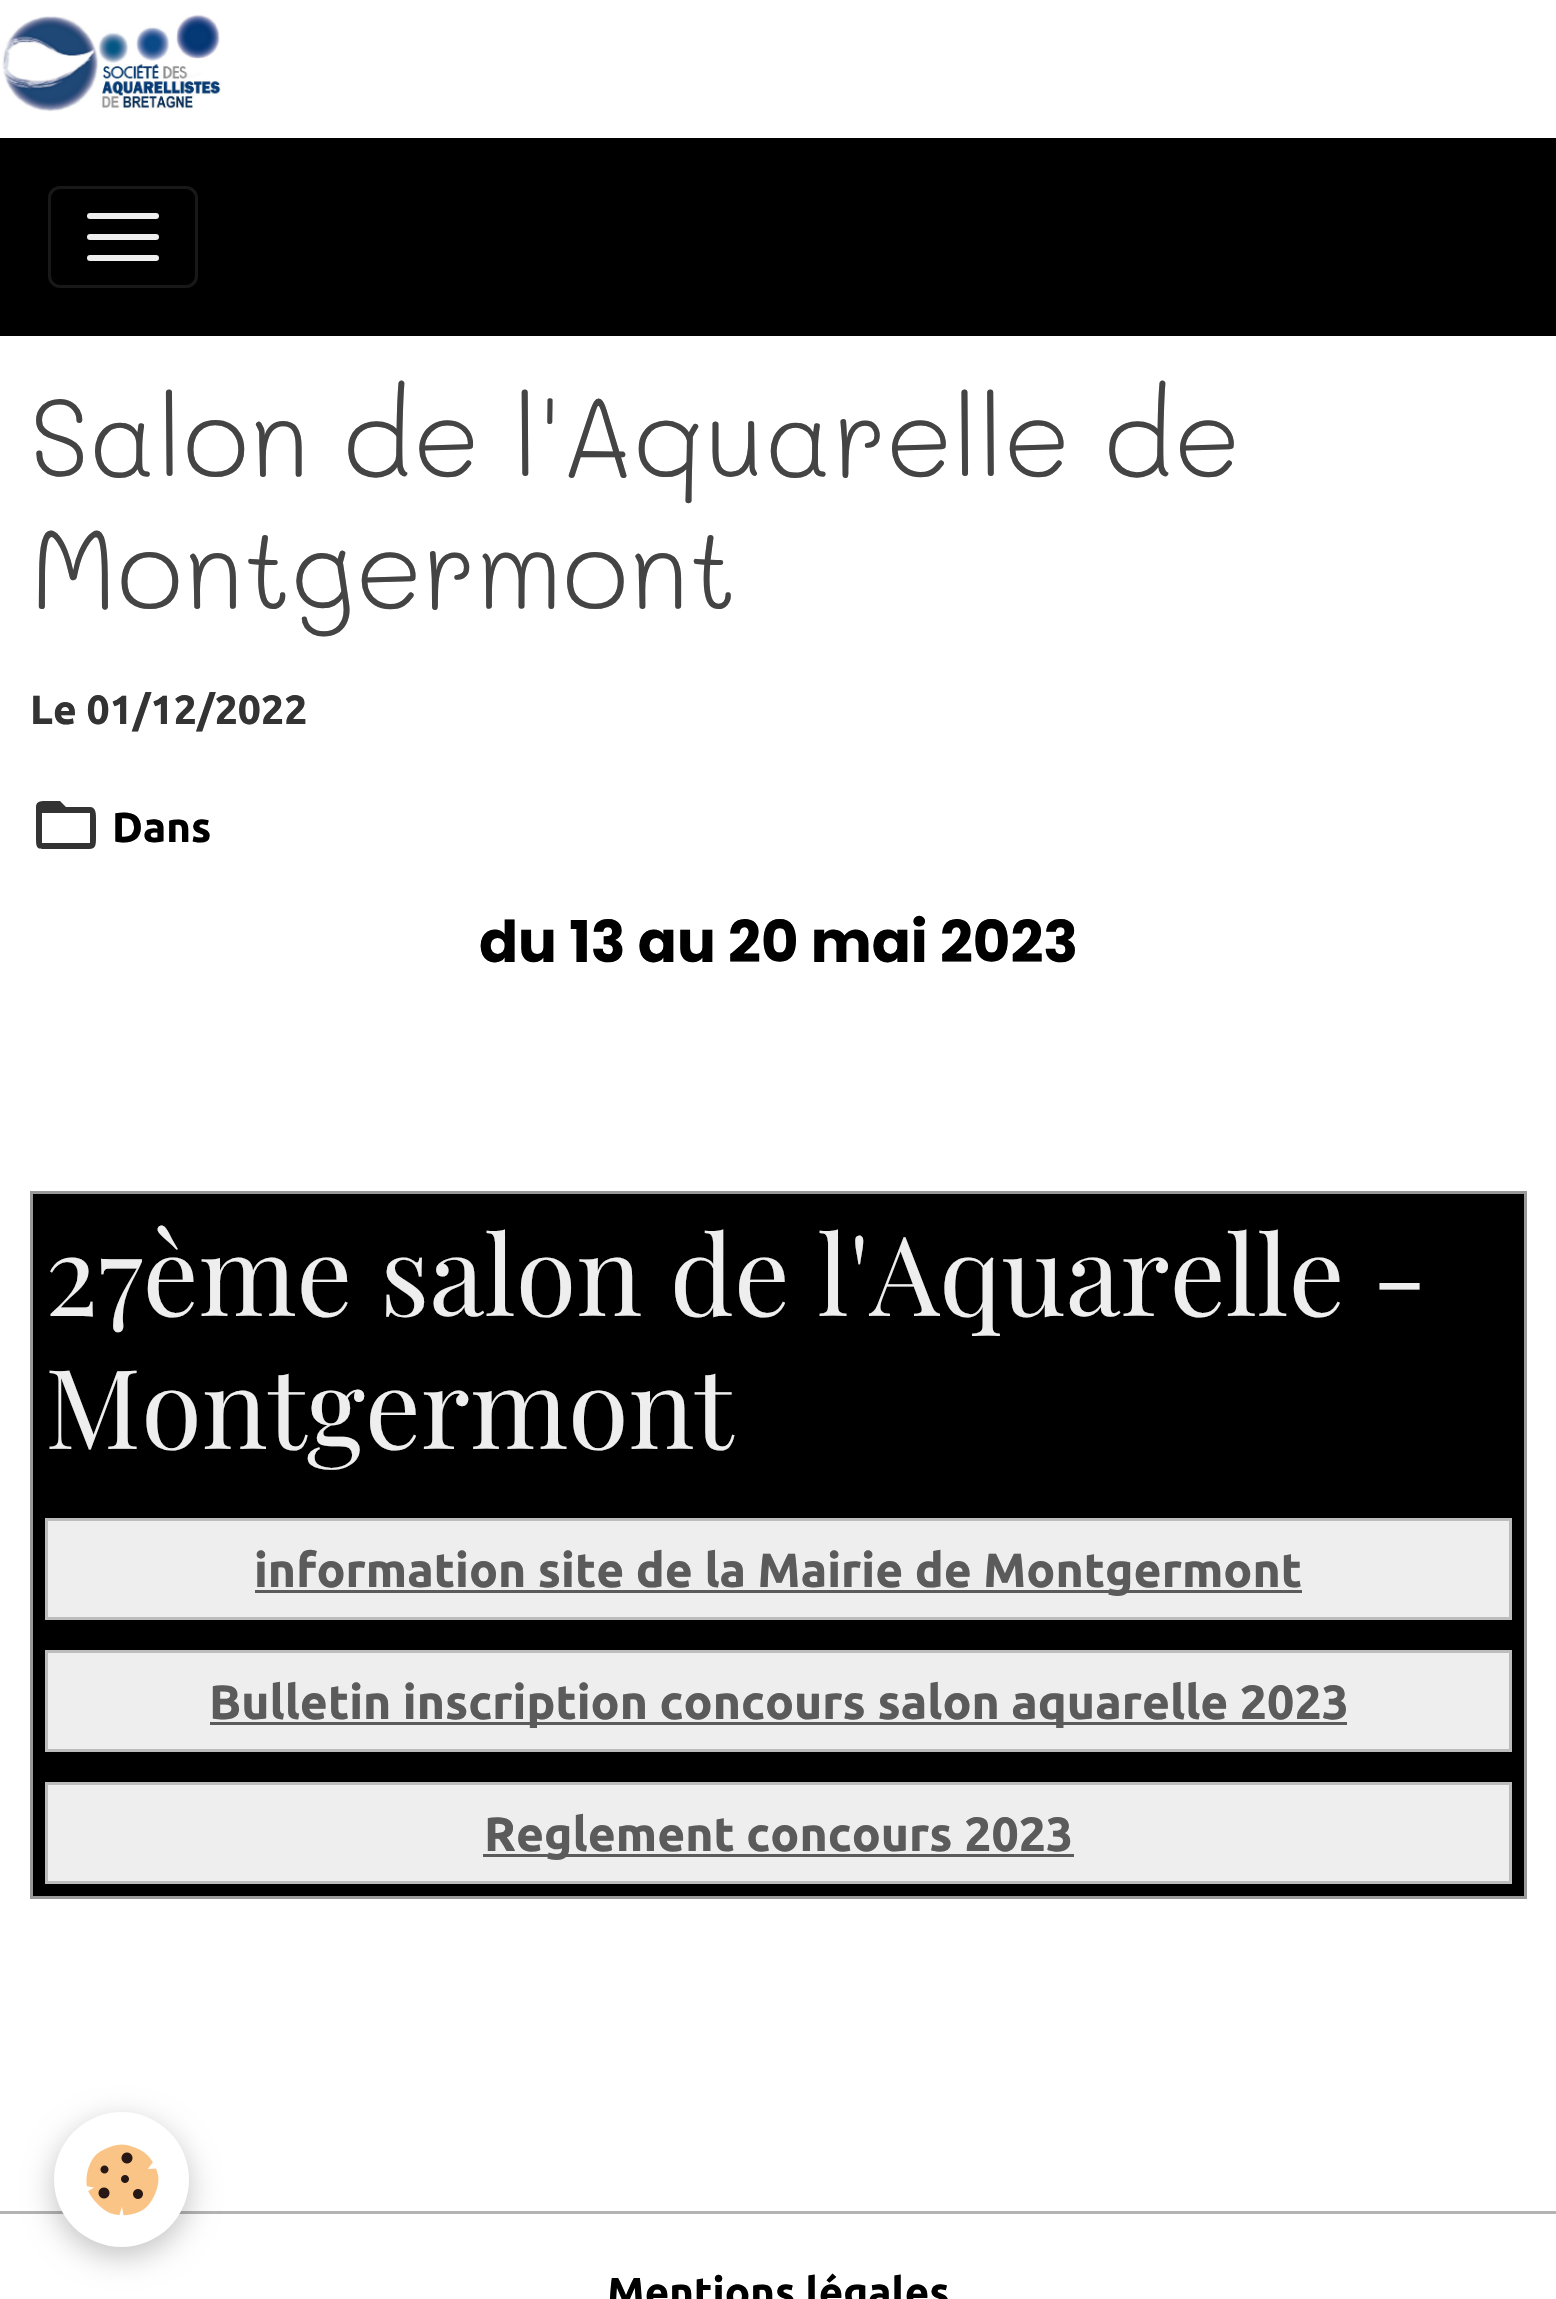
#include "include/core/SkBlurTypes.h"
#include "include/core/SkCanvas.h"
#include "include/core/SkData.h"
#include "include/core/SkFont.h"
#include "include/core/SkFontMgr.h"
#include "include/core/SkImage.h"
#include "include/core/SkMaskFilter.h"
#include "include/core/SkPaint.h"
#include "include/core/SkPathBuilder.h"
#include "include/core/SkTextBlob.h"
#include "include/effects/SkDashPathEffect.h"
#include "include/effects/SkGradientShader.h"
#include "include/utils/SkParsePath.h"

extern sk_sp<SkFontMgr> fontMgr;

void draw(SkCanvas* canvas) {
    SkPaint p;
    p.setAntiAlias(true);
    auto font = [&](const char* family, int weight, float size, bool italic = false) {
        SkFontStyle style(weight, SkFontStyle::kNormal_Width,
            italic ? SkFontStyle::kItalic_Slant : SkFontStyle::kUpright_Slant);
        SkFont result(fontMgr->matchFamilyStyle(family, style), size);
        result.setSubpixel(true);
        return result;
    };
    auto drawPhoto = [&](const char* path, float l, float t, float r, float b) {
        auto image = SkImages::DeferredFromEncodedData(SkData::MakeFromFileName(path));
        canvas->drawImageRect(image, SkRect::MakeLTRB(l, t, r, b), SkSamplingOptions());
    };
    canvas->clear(0xFFFFFFFF);
    drawPhoto("media/1.png", 2, 14, 221, 112);
    p.setColor(0xFF000000);
    canvas->drawRect(SkRect::MakeLTRB(0, 138, 1556, 336), p);
    p.setStyle(SkPaint::kStroke_Style);
    p.setStrokeWidth(3);
    p.setColor(0xFF181818);
    canvas->drawRoundRect(SkRect::MakeLTRB(49.5f, 187.5f, 196.5f, 286.5f), 10.5f, 10.5f, p);
    p.setStyle(SkPaint::kFill_Style);
    p.setColor(0xFFEEEEEE);
    canvas->drawRoundRect(SkRect::MakeLTRB(87, 213, 159, 219), 3, 3, p);
    canvas->drawRoundRect(SkRect::MakeLTRB(87, 234, 159, 240), 3, 3, p);
    canvas->drawRoundRect(SkRect::MakeLTRB(87, 255, 159, 261), 3, 3, p);
    auto font1 = font("Mali", 300, 110.4f);
    p.setColor(0xFF444444);
    canvas->drawString("Salon de l'Aquarelle de", 30, 477, font1, p);
    canvas->drawString("Montgermont", 30, 609, font1, p);
    auto font2 = font("Ubuntu", 700, 40.75f);
    p.setColor(0xFF333333);
    canvas->drawString("Le 01/12/2022", 30, 724, font2, p);
    canvas->drawPath(SkPathBuilder().moveTo(90, 807).cubicTo(96, 807, 96, 814, 96, 818).lineTo(96, 838).cubicTo(96, 850, 94, 849, 82, 849).lineTo(50, 849).cubicTo(37, 849, 36, 850, 36, 837).lineTo(36, 807).cubicTo(36, 800, 43, 801, 48, 801).lineTo(60, 801).lineTo(66, 807).close().moveTo(90, 843).lineTo(90, 813).lineTo(42, 813).lineTo(42, 843).close().detach(), p);
    auto font3 = font("Ubuntu", 700, 42);
    p.setColor(0xFF000000);
    canvas->drawString("Dans", 112, 842, font3, p);
    auto font4 = font("Poppins", 700, 57.6f);
    canvas->drawString("du 13 au 20 mai 2023", 479, 962, font4, p);
    canvas->drawRect(SkRect::MakeLTRB(31.5f, 1192.5f, 1525.5f, 1897.5f), p);
    p.setStyle(SkPaint::kStroke_Style);
    p.setColor(0xFF999999);
    canvas->drawRect(SkRect::MakeLTRB(31.5f, 1192.5f, 1525.5f, 1897.5f), p);
    auto font5 = font("Playfair Display", 400, 110.4f);
    p.setStyle(SkPaint::kFill_Style);
    p.setColor(0xFFEEEEEE);
    canvas->drawString("27ème salon de l'Aquarelle -", 45, 1316, font5, p);
    canvas->drawString("Montgermont", 45, 1449, font5, p);
    canvas->drawRect(SkRect::MakeLTRB(46.5f, 1519.5f, 1510.5f, 1618.5f), p);
    p.setStyle(SkPaint::kStroke_Style);
    p.setColor(0xFFBCBCBC);
    canvas->drawRect(SkRect::MakeLTRB(46.5f, 1519.5f, 1510.5f, 1618.5f), p);
    p.setStyle(SkPaint::kFill_Style);
    p.setColor(0xFF5B5B5B);
    canvas->drawRect(SkRect::MakeLTRB(255, 1590, 1302, 1593), p);
    auto font6 = font("Ubuntu", 700, 48);
    canvas->drawString("information site de la Mairie de Montgermont", 254, 1587, font6, p);
    p.setColor(0xFFEEEEEE);
    canvas->drawRect(SkRect::MakeLTRB(46.5f, 1651.5f, 1510.5f, 1750.5f), p);
    p.setStyle(SkPaint::kStroke_Style);
    p.setColor(0xFFBCBCBC);
    canvas->drawRect(SkRect::MakeLTRB(46.5f, 1651.5f, 1510.5f, 1750.5f), p);
    p.setStyle(SkPaint::kFill_Style);
    p.setColor(0xFF5B5B5B);
    canvas->drawRect(SkRect::MakeLTRB(210, 1722, 1347, 1725), p);
    canvas->drawString("Bulletin inscription concours salon aquarelle 2023", 209, 1719, font6, p);
    p.setColor(0xFFEEEEEE);
    canvas->drawRect(SkRect::MakeLTRB(46.5f, 1783.5f, 1510.5f, 1882.5f), p);
    p.setStyle(SkPaint::kStroke_Style);
    p.setColor(0xFFBCBCBC);
    canvas->drawRect(SkRect::MakeLTRB(46.5f, 1783.5f, 1510.5f, 1882.5f), p);
    p.setStyle(SkPaint::kFill_Style);
    p.setColor(0xFF5B5B5B);
    canvas->drawRect(SkRect::MakeLTRB(483, 1854, 1074, 1857), p);
    canvas->drawString("Reglement concours 2023", 484, 1851, font6, p);
    p.setColor(0xFFB3B3B3);
    canvas->drawRect(SkRect::MakeLTRB(0, 2211, 1556, 2214), p);
    p.setColor(0x3D000000);
    p.setMaskFilter(SkMaskFilter::MakeBlur(kNormal_SkBlurStyle, 15));
    canvas->drawRoundRect(SkRect::MakeLTRB(54, 2121, 189, 2256), 67.5f, 67.5f, p);
    p.setMaskFilter(nullptr);
    p.setColor(0xFFFFFFFF);
    canvas->drawCircle(121.5f, 2179.5f, 67.5f, p);
    drawPhoto("media/2.png", 86, 2144, 159, 2216);
    p.setColor(0xFF000000);
    canvas->drawString("Mentions légales", 607, 2307, font3, p);
}
